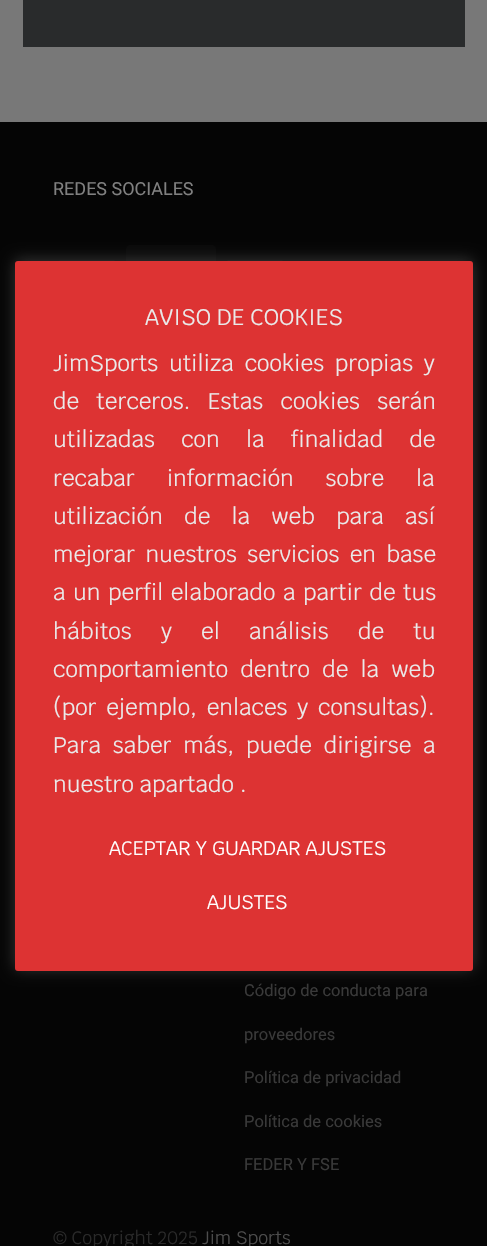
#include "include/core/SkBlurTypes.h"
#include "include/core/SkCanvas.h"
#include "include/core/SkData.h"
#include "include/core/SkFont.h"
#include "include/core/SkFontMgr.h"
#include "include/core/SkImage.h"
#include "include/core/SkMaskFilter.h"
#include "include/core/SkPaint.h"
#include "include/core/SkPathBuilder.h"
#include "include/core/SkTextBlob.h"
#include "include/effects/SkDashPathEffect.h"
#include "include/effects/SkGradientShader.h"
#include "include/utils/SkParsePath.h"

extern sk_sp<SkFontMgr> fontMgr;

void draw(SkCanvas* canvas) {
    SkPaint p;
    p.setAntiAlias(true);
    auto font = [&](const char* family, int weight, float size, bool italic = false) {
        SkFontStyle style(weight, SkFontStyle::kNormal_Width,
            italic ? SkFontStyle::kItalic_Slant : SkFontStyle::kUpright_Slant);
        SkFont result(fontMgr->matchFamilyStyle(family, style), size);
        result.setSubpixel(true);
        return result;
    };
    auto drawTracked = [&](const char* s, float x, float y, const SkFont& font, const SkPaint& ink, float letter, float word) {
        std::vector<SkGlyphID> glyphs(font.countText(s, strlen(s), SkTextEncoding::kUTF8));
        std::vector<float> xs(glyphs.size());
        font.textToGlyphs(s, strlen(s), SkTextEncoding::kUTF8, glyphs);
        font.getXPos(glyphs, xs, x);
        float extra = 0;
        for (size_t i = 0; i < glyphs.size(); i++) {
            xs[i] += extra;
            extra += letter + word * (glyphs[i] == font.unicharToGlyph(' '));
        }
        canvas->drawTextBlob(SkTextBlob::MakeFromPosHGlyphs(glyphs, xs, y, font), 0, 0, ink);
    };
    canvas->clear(0xFF787878);
    p.setColor(0xFF292B2C);
    canvas->drawRect(SkRect::MakeLTRB(23, 0, 465, 47), p);
    p.setColor(0xFF050505);
    canvas->drawRect(SkRect::MakeLTRB(0, 122, 487, 1246), p);
    auto font1 = font("Roboto", 400, 18);
    p.setColor(0xFF808080);
    canvas->drawString("REDES SOCIALES", 53, 195, font1, p);
    p.setColor(0xFF090909);
    canvas->drawRoundRect(SkRect::MakeLTRB(57, 260, 117, 320), 5, 5, p);
    canvas->drawRoundRect(SkRect::MakeLTRB(126, 245, 216, 335), 5, 5, p);
    canvas->drawRoundRect(SkRect::MakeLTRB(225, 260, 285, 320), 5, 5, p);
    auto font2 = font("Roboto", 400, 16.5f);
    p.setColor(0xFF393939);
    {
        const struct { const char* s; float x, y; } items[] = {
            {"Código de conducta para", 244, 996},
            {"proveedores", 244, 1040},
            {"Política de privacidad", 244, 1083},
            {"Política de cookies", 244, 1127},
            {"FEDER Y FSE", 244, 1170},
        };
        for (auto [s, x, y] : items) {
            canvas->drawString(s, x, y, font2, p);
        }
    }
    auto font3 = font("Krub", 400, 18);
    p.setColor(0xFF2A2A2A);
    canvas->drawString("© Copyright 2025", 53, 1244, font3, p);
    p.setColor(0xFF4D4D4D);
    canvas->drawString("Jim Sports", 202, 1244, font3, p);
    p.setColor(0x4DACABAB);
    p.setMaskFilter(SkMaskFilter::MakeBlur(kNormal_SkBlurStyle, 7.5f));
    canvas->drawRoundRect(SkRect::MakeLTRB(15, 260, 473, 969), 3, 3, p);
    p.setMaskFilter(nullptr);
    p.setColor(0xFFDD3333);
    canvas->drawRoundRect(SkRect::MakeLTRB(15, 261, 473, 971), 3, 3, p);
    auto font4 = font("Krub", 400, 22.5f);
    p.setColor(0xFFEAEAEA);
    canvas->drawString("AVISO DE COOKIES", 145, 325, font4, p);
    drawTracked("JimSports utiliza cookies propias y", 53, 371, font4, p, 0, 5);
    drawTracked("de terceros. Estas cookies serán", 53, 409, font4, p, 0, 11.5f);
    drawTracked("utilizadas con la finalidad de", 53, 447, font4, p, 0, 20.5f);
    drawTracked("recabar información sobre la", 53, 486, font4, p, 0, 26);
    drawTracked("utilización de la web para así", 53, 524, font4, p, 0, 15.5f);
    drawTracked("mejorar nuestros servicios en base", 53, 562, font4, p, 0, 4.5f);
    drawTracked("a un perfil elaborado a partir de tus", 53, 600, font4, p, 0, 1.75f);
    drawTracked("hábitos y el análisis de tu", 53, 639, font4, p, 0, 23.5f);
    drawTracked("comportamiento dentro de la web", 53, 677, font4, p, 0, 6.5f);
    drawTracked("(por ejemplo, enlaces y consultas).", 53, 715, font4, p, 0, 4);
    drawTracked("Para saber más, puede dirigirse a", 53, 753, font4, p, 0, 6);
    canvas->drawString("nuestro apartado .", 53, 792, font4, p);
    auto font5 = font("Krub", 400, 19.5f);
    p.setColor(0xFFFFFFFF);
    canvas->drawString("ACEPTAR Y GUARDAR AJUSTES", 109, 855, font5, p);
    canvas->drawString("AJUSTES", 207, 909, font5, p);
}
